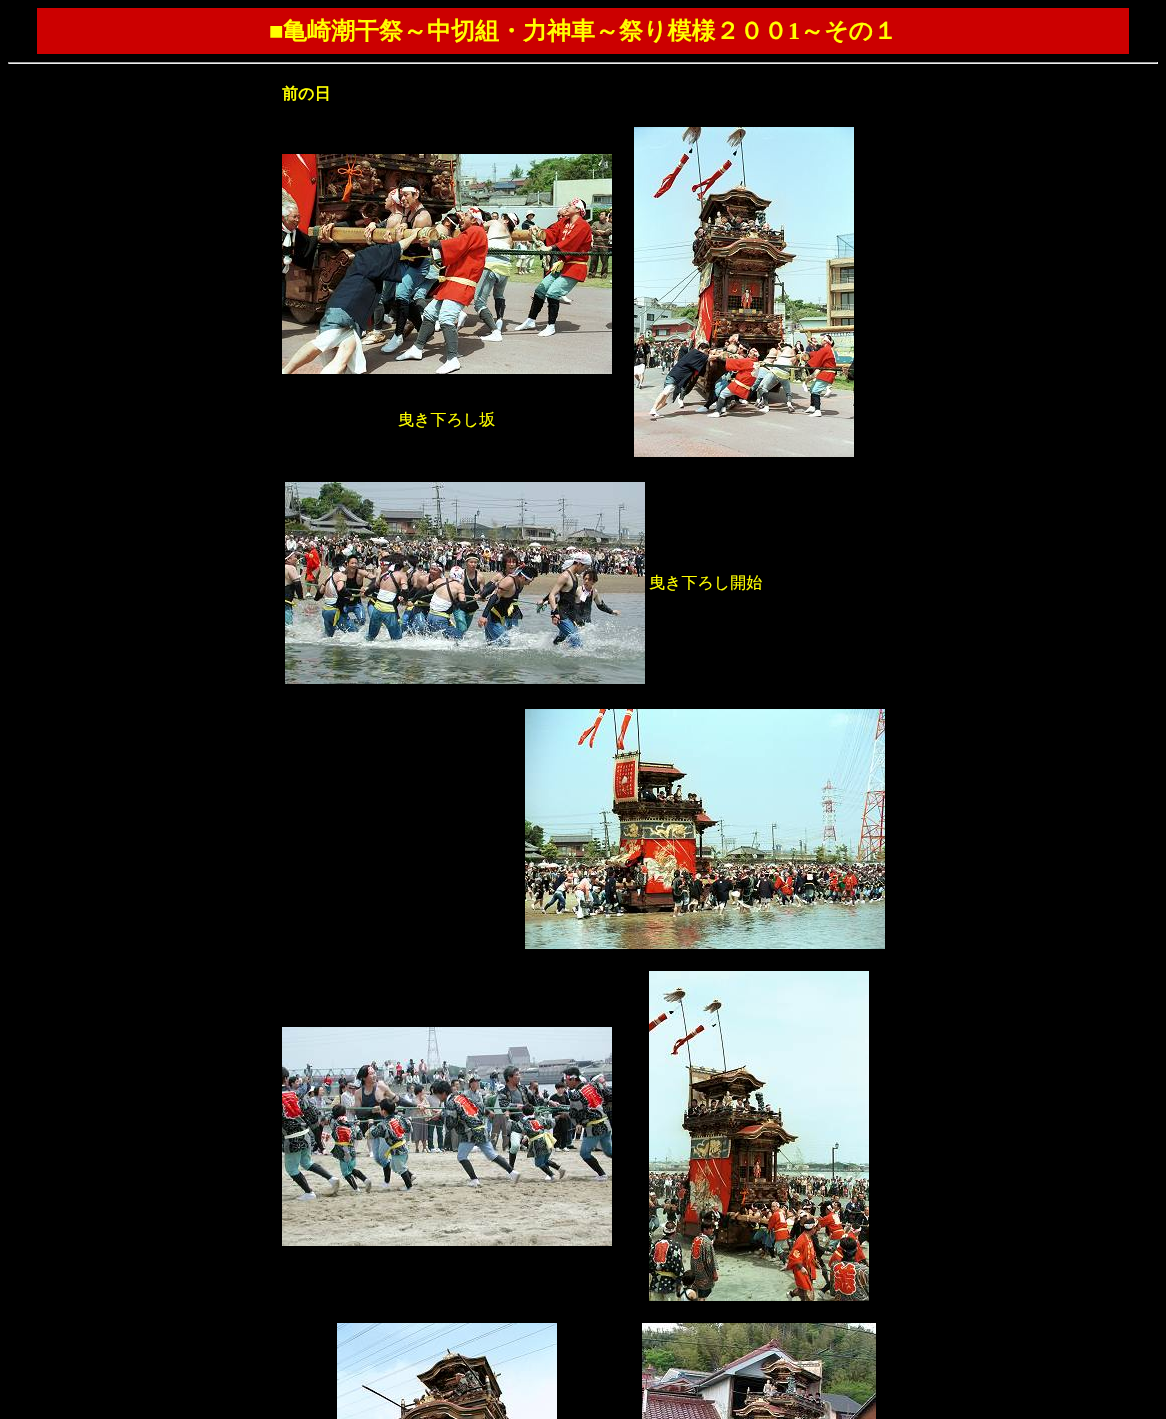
#include "include/core/SkBlurTypes.h"
#include "include/core/SkCanvas.h"
#include "include/core/SkData.h"
#include "include/core/SkFont.h"
#include "include/core/SkFontMgr.h"
#include "include/core/SkImage.h"
#include "include/core/SkMaskFilter.h"
#include "include/core/SkPaint.h"
#include "include/core/SkPathBuilder.h"
#include "include/core/SkTextBlob.h"
#include "include/effects/SkDashPathEffect.h"
#include "include/effects/SkGradientShader.h"
#include "include/utils/SkParsePath.h"

extern sk_sp<SkFontMgr> fontMgr;

void draw(SkCanvas* canvas) {
    SkPaint p;
    p.setAntiAlias(true);
    auto font = [&](const char* family, int weight, float size, bool italic = false) {
        SkFontStyle style(weight, SkFontStyle::kNormal_Width,
            italic ? SkFontStyle::kItalic_Slant : SkFontStyle::kUpright_Slant);
        SkFont result(fontMgr->matchFamilyStyle(family, style), size);
        result.setSubpixel(true);
        return result;
    };
    auto drawPhoto = [&](const char* path, float l, float t, float r, float b) {
        auto image = SkImages::DeferredFromEncodedData(SkData::MakeFromFileName(path));
        canvas->drawImageRect(image, SkRect::MakeLTRB(l, t, r, b), SkSamplingOptions());
    };
    canvas->clear(0xFF000000);
    p.setColor(0xFFCC0000);
    canvas->drawRect(SkRect::MakeLTRB(37, 8, 1129, 54), p);
    auto font1 = font("Liberation Serif", 700, 24);
    p.setColor(0xFFFFFF00);
    canvas->drawString("■", 269, 39, font1, p);
    auto font2 = font("WenQuanYi Zen Hei", 700, 24);
    canvas->drawString("亀崎潮干祭～中切組・力神車～祭り模様２００", 283, 39, font2, p);
    canvas->drawString("1", 788, 39, font1, p);
    canvas->drawString("～その１", 800, 39, font2, p);
    {
        const struct { float l, t, r, b; SkColor color; } items[] = {
            {8, 62, 1158, 63, 0xFF9F9F9F},
            {1157, 62, 1158, 64, 0xFFEEEEEE},
            {8, 63, 1158, 64, 0xFFEEEEEE},
            {8, 62, 9, 64, 0xFF9F9F9F},
        };
        for (auto [l, t, r, b, color] : items) {
            p.setColor(color);
            canvas->drawRect(SkRect::MakeLTRB(l, t, r, b), p);
        }
    }
    auto font3 = font("WenQuanYi Zen Hei", 700, 16);
    p.setColor(0xFFFFFF00);
    canvas->drawString("前の日", 282, 99, font3, p);
    drawPhoto("media/1.png", 282, 154, 612, 374);
    auto font4 = font("WenQuanYi Zen Hei", 500, 16);
    canvas->drawString("曳き下ろし坂", 398, 425, font4, p);
    drawPhoto("media/2.png", 634, 127, 854, 457);
    drawPhoto("media/3.png", 285, 482, 645, 684);
    canvas->drawString("曳き下ろし開始", 649, 588, font4, p);
    drawPhoto("media/4.png", 525, 709, 885, 949);
    drawPhoto("media/5.png", 282, 1027, 612, 1246);
    drawPhoto("media/6.png", 649, 971, 869, 1301);
    drawPhoto("media/7.png", 337, 1323, 557, 1419);
    drawPhoto("media/8.png", 642, 1323, 876, 1419);
}
